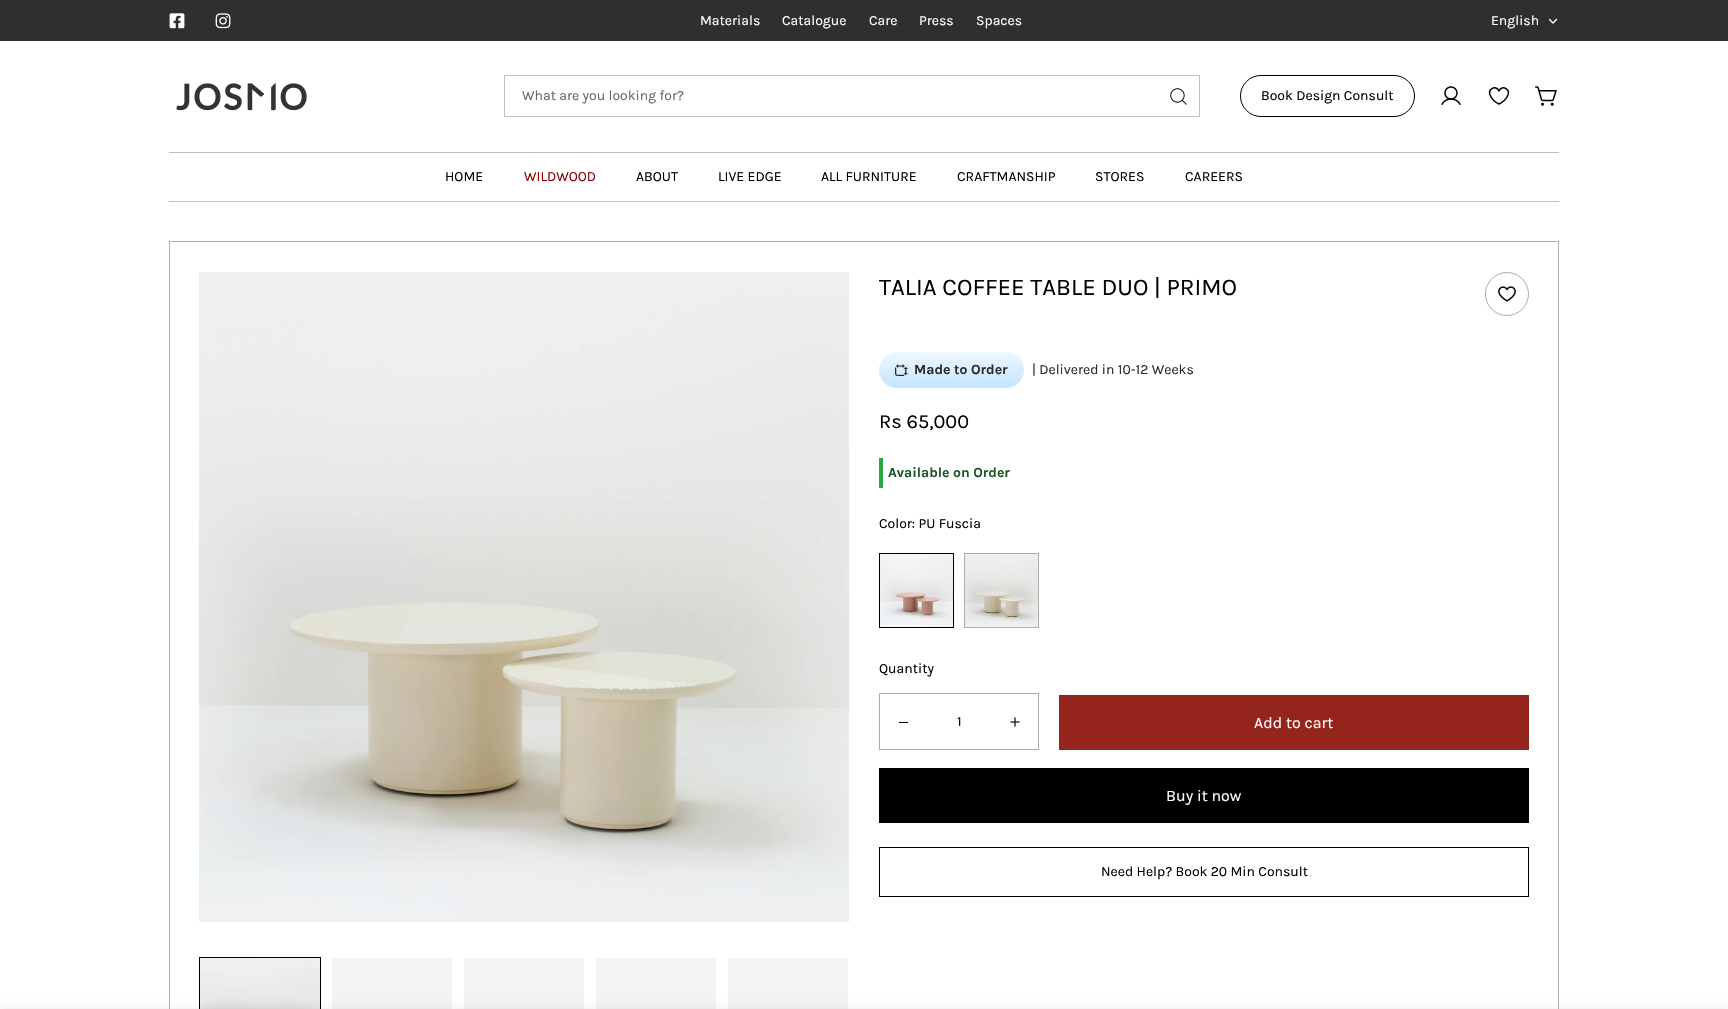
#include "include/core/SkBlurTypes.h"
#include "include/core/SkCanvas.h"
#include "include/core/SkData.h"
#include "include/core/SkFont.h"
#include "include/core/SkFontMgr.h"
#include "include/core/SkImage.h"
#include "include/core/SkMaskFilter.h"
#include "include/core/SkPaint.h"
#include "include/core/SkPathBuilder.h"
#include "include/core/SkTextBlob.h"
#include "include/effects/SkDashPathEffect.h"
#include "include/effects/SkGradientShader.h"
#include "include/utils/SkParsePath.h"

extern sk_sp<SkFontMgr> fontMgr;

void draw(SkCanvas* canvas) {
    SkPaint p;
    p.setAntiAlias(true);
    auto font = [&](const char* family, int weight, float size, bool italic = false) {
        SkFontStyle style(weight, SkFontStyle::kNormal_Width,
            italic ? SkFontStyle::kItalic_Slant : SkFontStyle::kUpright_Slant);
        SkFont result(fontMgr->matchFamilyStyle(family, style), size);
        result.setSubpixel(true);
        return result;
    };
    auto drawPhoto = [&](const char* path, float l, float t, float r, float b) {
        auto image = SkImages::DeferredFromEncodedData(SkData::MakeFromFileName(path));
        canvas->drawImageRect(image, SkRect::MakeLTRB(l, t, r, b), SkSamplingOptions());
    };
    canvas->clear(0xFFFFFFFF);
    p.setColor(0xFF2F2F2F);
    canvas->drawRect(SkRect::MakeLTRB(0, 0, 1728, 41), p);
    drawPhoto("media/1.png", 169, 13, 185, 29);
    drawPhoto("media/2.png", 215, 13, 231, 29);
    auto font1 = font("Karla", 400, 14);
    p.setColor(0xFFFFFFFF);
    {
        const struct { const char* s; float x, y; } items[] = {
            {"Materials", 700, 25},
            {"Catalogue", 782, 25},
            {"Care", 869, 25},
            {"Press", 919, 25},
            {"Spaces", 976, 25},
            {"English", 1491, 25},
        };
        for (auto [s, x, y] : items) {
            canvas->drawString(s, x, y, font1, p);
        }
    }
    p.setStyle(SkPaint::kStroke_Style);
    p.setStrokeWidth(1.4f);
    p.setStrokeCap(SkPaint::kRound_Cap);
    p.setStrokeJoin(SkPaint::kRound_Join);
    canvas->drawPath(SkPathBuilder().moveTo(1556.5f, 19.5f).lineTo(1553, 23).lineTo(1549.5f, 19.5f).detach(), p);
    drawPhoto("media/3.png", 176, 83, 307, 111);
    p.setStrokeWidth(1);
    p.setStrokeCap(SkPaint::kButt_Cap);
    p.setStrokeJoin(SkPaint::kMiter_Join);
    p.setColor(0xFFC0C0C0);
    canvas->drawRect(SkRect::MakeLTRB(504.5f, 75.5f, 1199.5f, 116.5f), p);
    p.setStyle(SkPaint::kFill_Style);
    p.setColor(0xFF666666);
    canvas->drawString("What are you looking for?", 522, 100, font1, p);
    drawPhoto("media/4.png", 1170, 88, 1187, 105);
    p.setStyle(SkPaint::kStroke_Style);
    p.setColor(0xFF000000);
    canvas->drawRoundRect(SkRect::MakeLTRB(1240.5f, 75.5f, 1414.5f, 116.5f), 20.5f, 20.5f, p);
    p.setStyle(SkPaint::kFill_Style);
    canvas->drawString("Book Design Consult", 1261, 100, font1, p);
    drawPhoto("media/5.png", 1441, 86, 1461, 105);
    p.setStyle(SkPaint::kStroke_Style);
    p.setStrokeWidth(1.5f);
    p.setStrokeCap(SkPaint::kRound_Cap);
    p.setStrokeJoin(SkPaint::kRound_Join);
    canvas->drawPath(SkPathBuilder().moveTo(1499, 104).cubicTo(1496, 102.5f, 1492.5f, 100, 1491, 97).cubicTo(1485.5f, 89, 1496.5f, 84.5f, 1499, 91).cubicTo(1501.5f, 84.5f, 1512.5f, 89, 1507, 97).cubicTo(1505.5f, 100, 1502, 102.5f, 1499, 104).close().detach(), p);
    drawPhoto("media/6.png", 1535, 86, 1557, 106);
    p.setStyle(SkPaint::kFill_Style);
    p.setColor(0xFFC0C0C0);
    canvas->drawRect(SkRect::MakeLTRB(169, 152, 1559, 153), p);
    canvas->drawRect(SkRect::MakeLTRB(169, 201, 1559, 202), p);
    p.setColor(0xFF000000);
    canvas->drawString("HOME", 445, 181, font1, p);
    p.setColor(0xFF8B0000);
    canvas->drawString("WILDWOOD", 524, 181, font1, p);
    p.setColor(0xFF000000);
    {
        const struct { const char* s; float x, y; } items[] = {
            {"ABOUT", 636, 181},
            {"LIVE EDGE", 718, 181},
            {"ALL FURNITURE", 821, 181},
            {"CRAFTMANSHIP", 957, 181},
            {"STORES", 1095, 181},
            {"CAREERS", 1185, 181},
        };
        for (auto [s, x, y] : items) {
            canvas->drawString(s, x, y, font1, p);
        }
    }
    drawPhoto("media/7.png", 199, 272, 849, 922);
    p.setStyle(SkPaint::kStroke_Style);
    p.setStrokeWidth(1);
    p.setStrokeCap(SkPaint::kButt_Cap);
    p.setStrokeJoin(SkPaint::kMiter_Join);
    canvas->drawRect(SkRect::MakeLTRB(199.5f, 957.5f, 320.5f, 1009.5f), p);
    drawPhoto("media/8.png", 200, 958, 320, 1009);
    p.setStyle(SkPaint::kFill_Style);
    {
        const struct { float l, t, r, b; SkColor color; } items[] = {
            {332, 958, 452, 1009, 0xFFF3F3F3},
            {464, 958, 584, 1009, 0xFFF3F3F3},
            {596, 958, 716, 1009, 0xFFF3F3F3},
            {728, 958, 848, 1009, 0xFFF3F3F3},
        };
        for (auto [l, t, r, b, color] : items) {
            p.setColor(color);
            canvas->drawRect(SkRect::MakeLTRB(l, t, r, b), p);
        }
    }
    p.setStyle(SkPaint::kStroke_Style);
    p.setColor(0xFFADADAD);
    canvas->drawRect(SkRect::MakeLTRB(169.5f, 241.5f, 1558.5f, 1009.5f), p);
    auto font2 = font("Karla", 400, 24);
    p.setStyle(SkPaint::kFill_Style);
    p.setColor(0xFF000000);
    canvas->drawString("TALIA COFFEE TABLE DUO | PRIMO", 879, 295, font2, p);
    p.setStyle(SkPaint::kStroke_Style);
    p.setColor(0xFFADADAD);
    canvas->drawCircle(1507, 294, 21.5f, p);
    drawPhoto("media/9.png", 1498, 286, 1516, 302);
    p.setStyle(SkPaint::kFill_Style);
    {
        const SkColor colors[] = {0xFFEEF8FF, 0xFFC2E5FF};
        const float stops[] = {0, 1};
        const SkPoint ends[] = {{952, 352}, {952, 388}};
        p.setShader(SkGradientShader::MakeLinear(ends, colors, stops, 2, SkTileMode::kClamp));
        p.setAlpha(255);
    }
    canvas->drawRoundRect(SkRect::MakeLTRB(879, 352, 1024, 388), 18, 18, p);
    drawPhoto("media/10.png", 895, 364, 908, 376);
    auto font3 = font("Karla", 700, 14);
    p.setShader(nullptr);
    p.setColor(0xFF292929);
    canvas->drawString("Made to Order", 914, 374, font3, p);
    canvas->drawString("| Delivered in 10-12 Weeks", 1032, 374, font1, p);
    auto font4 = font("Karla", 400, 20);
    p.setColor(0xFF000000);
    canvas->drawString("Rs 65,000", 879, 428, font4, p);
    p.setColor(0xFF28A745);
    canvas->drawRect(SkRect::MakeLTRB(879, 458, 883, 488), p);
    p.setColor(0xFF155724);
    canvas->drawString("Available on Order", 888, 477, font3, p);
    p.setColor(0xFF000000);
    canvas->drawString("Color: PU Fuscia", 879, 528, font1, p);
    drawPhoto("media/11.png", 880, 554, 953, 627);
    p.setStyle(SkPaint::kStroke_Style);
    canvas->drawRect(SkRect::MakeLTRB(879.5f, 553.5f, 953.5f, 627.5f), p);
    drawPhoto("media/12.png", 965, 554, 1038, 627);
    p.setColor(0xFFADADAD);
    canvas->drawRect(SkRect::MakeLTRB(964.5f, 553.5f, 1038.5f, 627.5f), p);
    p.setStyle(SkPaint::kFill_Style);
    p.setColor(0xFF000000);
    canvas->drawString("Quantity", 879, 673, font1, p);
    p.setStyle(SkPaint::kStroke_Style);
    p.setColor(0xFFADADAD);
    canvas->drawRect(SkRect::MakeLTRB(879.5f, 693.5f, 1038.5f, 749.5f), p);
    drawPhoto("media/13.png", 898, 721, 908, 723);
    p.setStyle(SkPaint::kFill_Style);
    p.setColor(0xFF000000);
    canvas->drawString("1", 957, 726, font1, p);
    drawPhoto("media/14.png", 1010, 717, 1020, 727);
    p.setColor(0xFF95251C);
    canvas->drawRect(SkRect::MakeLTRB(1059, 695, 1529, 750), p);
    auto font5 = font("Karla", 400, 16);
    p.setColor(0xFFFFFFFF);
    canvas->drawString("Add to cart", 1254, 728, font5, p);
    p.setColor(0xFF000000);
    canvas->drawRect(SkRect::MakeLTRB(879, 768, 1529, 823), p);
    p.setColor(0xFFFFFFFF);
    canvas->drawString("Buy it now", 1166, 801, font5, p);
    p.setStyle(SkPaint::kStroke_Style);
    p.setColor(0xFF000000);
    canvas->drawRect(SkRect::MakeLTRB(879.5f, 847.5f, 1528.5f, 896.5f), p);
    p.setStyle(SkPaint::kFill_Style);
    canvas->drawString("Need Help? Book 20 Min Consult", 1101, 876, font1, p);
    p.setColor(0x17000000);
    p.setMaskFilter(SkMaskFilter::MakeBlur(kNormal_SkBlurStyle, 5));
    canvas->drawRect(SkRect::MakeLTRB(0, 1009, 1728, 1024), p);
    p.setMaskFilter(nullptr);
}
